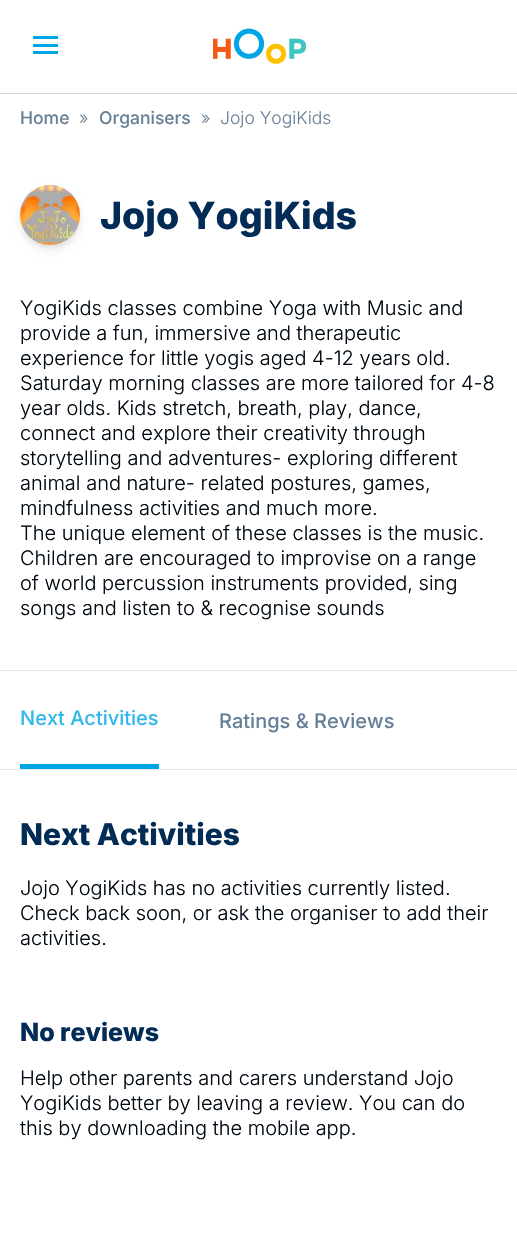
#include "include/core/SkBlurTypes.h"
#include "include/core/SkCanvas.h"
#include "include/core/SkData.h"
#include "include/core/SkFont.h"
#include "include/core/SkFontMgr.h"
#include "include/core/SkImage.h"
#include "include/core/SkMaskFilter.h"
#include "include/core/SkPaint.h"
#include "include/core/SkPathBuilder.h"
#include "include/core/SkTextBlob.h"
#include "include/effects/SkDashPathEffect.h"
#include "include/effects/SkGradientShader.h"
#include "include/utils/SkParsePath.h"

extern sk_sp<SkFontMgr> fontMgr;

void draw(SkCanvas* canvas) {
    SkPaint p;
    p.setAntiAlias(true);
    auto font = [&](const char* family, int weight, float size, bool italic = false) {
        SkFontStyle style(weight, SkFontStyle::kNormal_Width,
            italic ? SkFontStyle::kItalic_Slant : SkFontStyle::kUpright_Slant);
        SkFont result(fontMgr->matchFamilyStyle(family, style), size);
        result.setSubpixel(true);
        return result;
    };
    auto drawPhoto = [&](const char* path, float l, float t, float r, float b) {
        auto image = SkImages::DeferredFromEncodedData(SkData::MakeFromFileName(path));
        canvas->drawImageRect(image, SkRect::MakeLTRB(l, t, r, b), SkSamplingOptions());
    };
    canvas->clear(0xFFFFFFFF);
    {
        const struct { float l, t, r, b; SkColor color; } items[] = {
            {0, 93, 517, 94, 0xFFCCD5DD},
            {33, 36, 58, 39, 0xFF00A5E6},
            {33, 44, 58, 47, 0xFF00A5E6},
            {33, 51, 58, 54, 0xFF00A5E6},
        };
        for (auto [l, t, r, b, color] : items) {
            p.setColor(color);
            canvas->drawRect(SkRect::MakeLTRB(l, t, r, b), p);
        }
    }
    drawPhoto("media/1.png", 213, 28, 306, 64);
    auto font1 = font("Inter", 500, 17.5f);
    p.setColor(0xFF678099);
    canvas->drawString("Home", 20, 124, font1, p);
    auto font2 = font("Inter", 300, 17.5f);
    canvas->drawString("»", 79, 124, font2, p);
    canvas->drawString("Organisers", 99, 124, font1, p);
    canvas->drawString("»", 201, 124, font2, p);
    canvas->drawString("Jojo YogiKids", 220, 124, font2, p);
    p.setColor(0x1A000000);
    p.setMaskFilter(SkMaskFilter::MakeBlur(kNormal_SkBlurStyle, 2.5f));
    canvas->drawRoundRect(SkRect::MakeLTRB(23, 190, 78, 245), 27.5f, 27.5f, p);
    p.setMaskFilter(nullptr);
    p.setMaskFilter(SkMaskFilter::MakeBlur(kNormal_SkBlurStyle, 4));
    canvas->drawRoundRect(SkRect::MakeLTRB(21, 191, 79, 249), 29, 29, p);
    p.setMaskFilter(nullptr);
    drawPhoto("media/2.png", 20, 185, 80, 245);
    auto font3 = font("Inter", 800, 37.5f);
    p.setColor(0xFF022B55);
    canvas->drawString("Jojo YogiKids", 100, 229, font3, p);
    auto font4 = font("Inter", 300, 20);
    p.setColor(0xFF000911);
    {
        const struct { const char* s; float x, y; } items[] = {
            {"YogiKids classes combine Yoga with Music and", 20, 315},
            {"provide a fun, immersive and therapeutic", 20, 340},
            {"experience for little yogis aged 4-12 years old.", 20, 365},
            {"Saturday morning classes are more tailored for 4-8", 20, 390},
            {"year olds. Kids stretch, breath, play, dance,", 20, 415},
            {"connect and explore their creativity through", 20, 440},
            {"storytelling and adventures- exploring different", 20, 465},
            {"animal and nature- related postures, games,", 20, 490},
            {"mindfulness activities and much more.", 20, 515},
            {"The unique element of these classes is the music.", 20, 540},
            {"Children are encouraged to improvise on a range", 20, 565},
            {"of world percussion instruments provided, sing", 20, 590},
            {"songs and listen to & recognise sounds", 20, 615},
        };
        for (auto [s, x, y] : items) {
            canvas->drawString(s, x, y, font4, p);
        }
    }
    {
        const struct { float l, t, r, b; SkColor color; } items[] = {
            {0, 670, 517, 671, 0xFFE6EAEE},
            {0, 769, 517, 770, 0xFFE6EAEE},
            {20, 764, 159, 769, 0xFF00A5E6},
        };
        for (auto [l, t, r, b, color] : items) {
            p.setColor(color);
            canvas->drawRect(SkRect::MakeLTRB(l, t, r, b), p);
        }
    }
    auto font5 = font("Inter", 500, 20);
    p.setColor(0xFF33B7EB);
    canvas->drawString("Next Activities", 20, 725, font5, p);
    p.setColor(0xFF678099);
    canvas->drawString("Ratings & Reviews", 219, 728, font5, p);
    auto font6 = font("Inter", 800, 30);
    p.setColor(0xFF022B55);
    canvas->drawString("Next Activities", 20, 845, font6, p);
    p.setColor(0xFF000911);
    {
        const struct { const char* s; float x, y; } items[] = {
            {"Jojo YogiKids has no activities currently listed.", 20, 895},
            {"Check back soon, or ask the organiser to add their", 20, 920},
            {"activities.", 20, 945},
        };
        for (auto [s, x, y] : items) {
            canvas->drawString(s, x, y, font4, p);
        }
    }
    auto font7 = font("Inter", 800, 25);
    p.setColor(0xFF022B55);
    canvas->drawString("No reviews", 20, 1041, font7, p);
    p.setColor(0xFF000911);
    {
        const struct { const char* s; float x, y; } items[] = {
            {"Help other parents and carers understand Jojo", 20, 1085},
            {"YogiKids better by leaving a review. You can do", 20, 1110},
            {"this by downloading the mobile app.", 20, 1135},
        };
        for (auto [s, x, y] : items) {
            canvas->drawString(s, x, y, font4, p);
        }
    }
}
